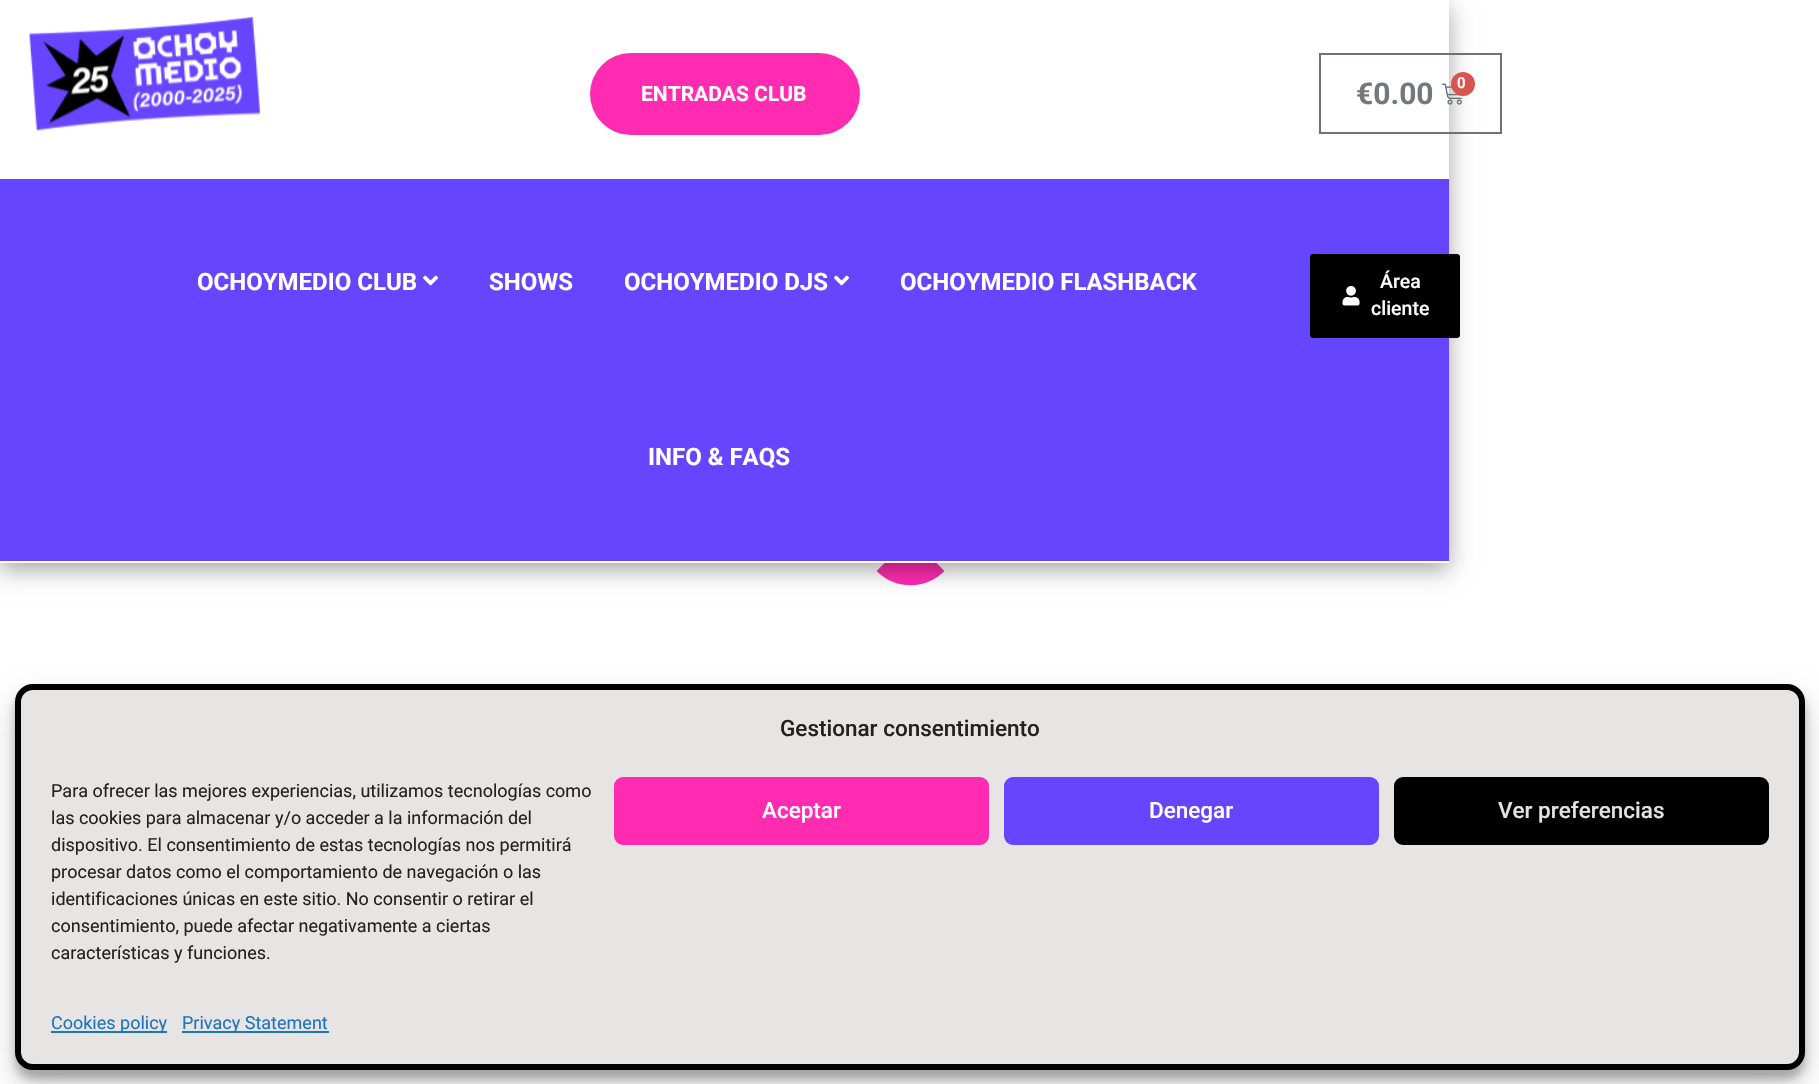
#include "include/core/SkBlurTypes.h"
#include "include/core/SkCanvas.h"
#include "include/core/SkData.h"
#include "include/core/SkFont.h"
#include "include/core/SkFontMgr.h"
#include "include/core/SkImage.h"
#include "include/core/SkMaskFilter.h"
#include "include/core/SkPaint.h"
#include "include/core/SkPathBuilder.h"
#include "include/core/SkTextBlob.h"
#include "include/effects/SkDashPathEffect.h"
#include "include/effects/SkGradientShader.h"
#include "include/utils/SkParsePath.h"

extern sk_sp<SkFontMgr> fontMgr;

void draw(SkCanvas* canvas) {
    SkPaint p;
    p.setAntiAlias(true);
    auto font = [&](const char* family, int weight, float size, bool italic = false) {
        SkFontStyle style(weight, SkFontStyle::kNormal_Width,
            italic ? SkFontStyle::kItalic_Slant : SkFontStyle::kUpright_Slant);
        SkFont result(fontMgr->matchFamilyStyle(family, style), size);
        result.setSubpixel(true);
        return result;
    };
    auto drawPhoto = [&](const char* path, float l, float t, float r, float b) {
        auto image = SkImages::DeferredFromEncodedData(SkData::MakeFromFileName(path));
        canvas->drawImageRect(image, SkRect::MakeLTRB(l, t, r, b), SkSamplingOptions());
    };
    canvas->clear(0xFFFFFFFF);
    p.setStyle(SkPaint::kStroke_Style);
    p.setStrokeWidth(48);
    p.setColor(0xFFFF2BB0);
    canvas->drawPath(SkPathBuilder().moveTo(927.5f, 554).cubicTo(918, 563.5f, 903, 563.5f, 893.5f, 554).detach(), p);
    p.setStyle(SkPaint::kFill_Style);
    p.setColor(0x59000000);
    p.setMaskFilter(SkMaskFilter::MakeBlur(kNormal_SkBlurStyle, 11));
    canvas->drawRect(SkRect::MakeLTRB(0, 8, 1449, 570), p);
    p.setMaskFilter(nullptr);
    p.setColor(0xFFFFFFFF);
    canvas->drawRect(SkRect::MakeLTRB(0, 0, 1449, 563), p);
    drawPhoto("media/1.png", 29, 17, 261, 131);
    {
        const SkColor colors[] = {0xFFFF2BB0, 0xFFFF2BB0, 0xFF6645FF};
        const float stops[] = {0, 0.67f, 1};
        const SkPoint ends[] = {{590, 94}, {1400, 94}};
        p.setShader(SkGradientShader::MakeLinear(ends, colors, stops, 3, SkTileMode::kClamp));
        p.setAlpha(255);
    }
    canvas->drawRoundRect(SkRect::MakeLTRB(590, 53, 860, 135), 41, 41, p);
    auto font1 = font("Roboto", 700, 21);
    p.setShader(nullptr);
    p.setColor(0xFFFFFFFF);
    canvas->drawString("ENTRADAS CLUB", 641, 101, font1, p);
    p.setStyle(SkPaint::kStroke_Style);
    p.setStrokeWidth(2);
    p.setColor(0xFF69727D);
    canvas->drawRect(SkRect::MakeLTRB(1320, 54, 1501, 133), p);
    auto font2 = font("Roboto", 700, 30);
    p.setStyle(SkPaint::kFill_Style);
    p.setColor(0xFF74787C);
    canvas->drawString("€0.00", 1356, 104, font2, p);
    drawPhoto("media/2.png", 1441, 83, 1462, 105);
    p.setColor(0xFFD9534F);
    canvas->drawCircle(1463, 84, 12, p);
    auto font3 = font("Roboto", 600, 15);
    p.setColor(0xFFFFFFFF);
    canvas->drawString("0", 1457, 88, font3, p);
    p.setColor(0xFF6645FF);
    canvas->drawRect(SkRect::MakeLTRB(0, 179, 1449, 561), p);
    auto font4 = font("Roboto", 700, 24);
    p.setColor(0xFFFFFFFF);
    canvas->drawString("OCHOYMEDIO CLUB", 197, 290, font4, p);
    drawPhoto("media/3.png", 423, 275, 438, 286);
    canvas->drawString("SHOWS", 489, 290, font4, p);
    canvas->drawString("OCHOYMEDIO DJS", 624, 290, font4, p);
    drawPhoto("media/3.png", 834, 275, 849, 286);
    canvas->drawString("OCHOYMEDIO FLASHBACK", 900, 290, font4, p);
    canvas->drawString("INFO & FAQS", 648, 465, font4, p);
    p.setColor(0xFF000000);
    canvas->drawRoundRect(SkRect::MakeLTRB(1310, 254, 1460, 338), 3, 3, p);
    drawPhoto("media/4.png", 1342, 285, 1360, 306);
    auto font5 = font("Roboto", 500, 19.5f);
    p.setColor(0xFFFFFFFF);
    canvas->drawString("Área", 1380, 288, font5, p);
    canvas->drawString("cliente", 1371, 315, font5, p);
    p.setColor(0x3B000000);
    p.setMaskFilter(SkMaskFilter::MakeBlur(kNormal_SkBlurStyle, 4.5f));
    canvas->drawRoundRect(SkRect::MakeLTRB(15, 693, 1805, 1079), 18, 18, p);
    p.setMaskFilter(nullptr);
    p.setColor(0x30000000);
    p.setMaskFilter(SkMaskFilter::MakeBlur(kNormal_SkBlurStyle, 15));
    canvas->drawRoundRect(SkRect::MakeLTRB(15, 699, 1805, 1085), 18, 18, p);
    p.setMaskFilter(nullptr);
    p.setColor(0xFFE7E4E4);
    canvas->drawRoundRect(SkRect::MakeLTRB(18, 687, 1802, 1067), 15, 15, p);
    p.setStyle(SkPaint::kStroke_Style);
    p.setStrokeWidth(6);
    p.setColor(0xFF000000);
    canvas->drawRoundRect(SkRect::MakeLTRB(18, 687, 1802, 1067), 15, 15, p);
    auto font6 = font("Roboto", 500, 22.5f);
    p.setStyle(SkPaint::kFill_Style);
    p.setColor(0xFF222222);
    canvas->drawString("Gestionar consentimiento", 780, 736, font6, p);
    auto font7 = font("Roboto", 400, 18);
    {
        const struct { const char* s; float x, y; } items[] = {
            {"Para ofrecer las mejores experiencias, utilizamos tecnologías como", 51, 797},
            {"las cookies para almacenar y/o acceder a la información del", 51, 824},
            {"dispositivo. El consentimiento de estas tecnologías nos permitirá", 51, 851},
            {"procesar datos como el comportamiento de navegación o las", 51, 878},
            {"identificaciones únicas en este sitio. No consentir o retirar el", 51, 905},
            {"consentimiento, puede afectar negativamente a ciertas", 51, 932},
            {"características y funciones.", 51, 959},
        };
        for (auto [s, x, y] : items) {
            canvas->drawString(s, x, y, font7, p);
        }
    }
    p.setColor(0xFFFF2BB0);
    canvas->drawRoundRect(SkRect::MakeLTRB(615, 778, 988, 844), 8, 8, p);
    p.setStyle(SkPaint::kStroke_Style);
    p.setStrokeWidth(2);
    canvas->drawRoundRect(SkRect::MakeLTRB(615, 778, 988, 844), 8, 8, p);
    p.setStyle(SkPaint::kFill_Style);
    p.setColor(0xFFFFFFFF);
    canvas->drawString("Aceptar", 762, 818, font6, p);
    p.setColor(0xFF6645FF);
    canvas->drawRoundRect(SkRect::MakeLTRB(1005, 778, 1378, 844), 8, 8, p);
    p.setStyle(SkPaint::kStroke_Style);
    canvas->drawRoundRect(SkRect::MakeLTRB(1005, 778, 1378, 844), 8, 8, p);
    p.setStyle(SkPaint::kFill_Style);
    p.setColor(0xFFFFFFFF);
    canvas->drawString("Denegar", 1149, 818, font6, p);
    p.setColor(0xFF000000);
    canvas->drawRoundRect(SkRect::MakeLTRB(1395, 778, 1768, 844), 8, 8, p);
    p.setStyle(SkPaint::kStroke_Style);
    canvas->drawRoundRect(SkRect::MakeLTRB(1395, 778, 1768, 844), 8, 8, p);
    p.setStyle(SkPaint::kFill_Style);
    p.setColor(0xFFE3E1E1);
    canvas->drawString("Ver preferencias", 1498, 818, font6, p);
    p.setColor(0xFF1E73BE);
    canvas->drawRect(SkRect::MakeLTRB(51, 1031, 167, 1033), p);
    canvas->drawString("Cookies policy", 51, 1029, font7, p);
    canvas->drawRect(SkRect::MakeLTRB(182, 1031, 329, 1033), p);
    canvas->drawString("Privacy Statement", 182, 1029, font7, p);
}
